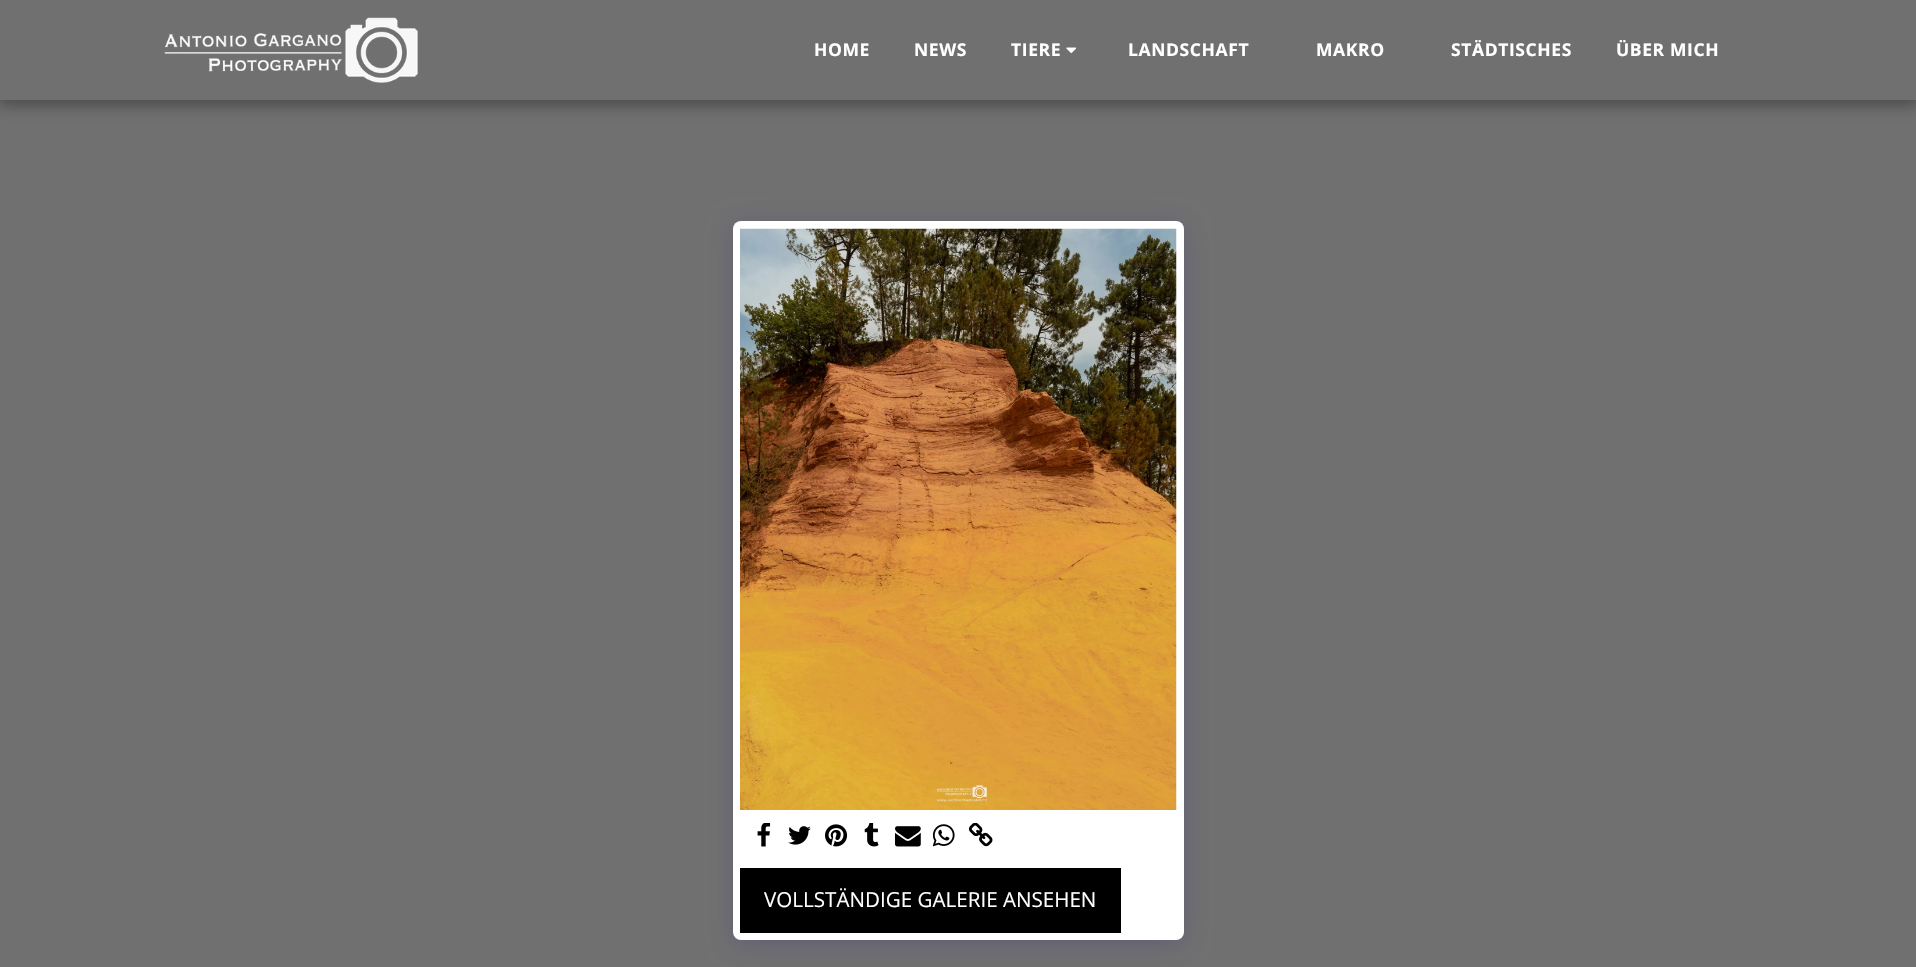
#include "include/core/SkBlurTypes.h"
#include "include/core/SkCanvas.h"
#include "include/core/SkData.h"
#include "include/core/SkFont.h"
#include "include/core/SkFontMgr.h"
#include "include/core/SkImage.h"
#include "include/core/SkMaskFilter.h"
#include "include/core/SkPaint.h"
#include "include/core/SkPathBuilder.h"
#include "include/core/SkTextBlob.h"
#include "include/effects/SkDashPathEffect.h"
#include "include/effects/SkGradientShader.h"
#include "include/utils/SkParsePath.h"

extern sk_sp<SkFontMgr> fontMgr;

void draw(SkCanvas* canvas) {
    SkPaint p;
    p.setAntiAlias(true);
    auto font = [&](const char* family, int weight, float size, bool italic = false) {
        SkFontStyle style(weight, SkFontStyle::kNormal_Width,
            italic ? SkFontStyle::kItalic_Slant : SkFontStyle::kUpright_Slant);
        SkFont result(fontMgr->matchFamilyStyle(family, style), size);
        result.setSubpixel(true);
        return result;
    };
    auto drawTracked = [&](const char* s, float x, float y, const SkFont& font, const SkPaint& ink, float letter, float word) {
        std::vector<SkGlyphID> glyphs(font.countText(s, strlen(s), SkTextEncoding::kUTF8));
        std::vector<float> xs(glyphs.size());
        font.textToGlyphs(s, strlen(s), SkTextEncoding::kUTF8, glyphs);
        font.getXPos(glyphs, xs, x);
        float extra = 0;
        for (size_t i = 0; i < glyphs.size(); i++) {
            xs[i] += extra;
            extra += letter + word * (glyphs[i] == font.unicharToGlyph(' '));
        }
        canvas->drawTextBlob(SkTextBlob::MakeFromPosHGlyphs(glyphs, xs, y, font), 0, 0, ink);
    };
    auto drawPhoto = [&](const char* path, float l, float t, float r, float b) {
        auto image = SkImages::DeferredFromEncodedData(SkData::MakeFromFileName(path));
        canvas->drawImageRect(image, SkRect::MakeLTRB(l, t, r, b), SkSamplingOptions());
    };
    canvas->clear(0xFF707070);
    p.setColor(0x59000000);
    p.setMaskFilter(SkMaskFilter::MakeBlur(kNormal_SkBlurStyle, 7.5f));
    canvas->drawRect(SkRect::MakeLTRB(-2, 0, 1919, 105), p);
    p.setMaskFilter(nullptr);
    p.setColor(0xFF707070);
    canvas->drawRect(SkRect::MakeLTRB(0, 0, 1916, 100), p);
    drawPhoto("media/1.png", 164, 17, 418, 83);
    auto font1 = font("Open Sans", 700, 17.5f);
    p.setColor(0xFFFFFFFF);
    {
        const struct { const char* s; float x, y; } items[] = {
            {"HOME", 814, 56},
            {"NEWS", 914, 56},
            {"TIERE", 1011, 56},
        };
        for (auto [s, x, y] : items) {
            drawTracked(s, x, y, font1, p, 0.6f, 0);
        }
    }
    drawPhoto("media/2.png", 1066, 47, 1076, 54);
    {
        const struct { const char* s; float x, y; } items[] = {
            {"LANDSCHAFT", 1128, 56},
            {"MAKRO", 1316, 56},
            {"STÄDTISCHES", 1451, 56},
            {"ÜBER MICH", 1616, 56},
        };
        for (auto [s, x, y] : items) {
            drawTracked(s, x, y, font1, p, 0.6f, 0);
        }
    }
    p.setColor(0x664D3F7A);
    p.setMaskFilter(SkMaskFilter::MakeBlur(kNormal_SkBlurStyle, 12.5f));
    canvas->drawRoundRect(SkRect::MakeLTRB(733, 225, 1184, 944), 8, 8, p);
    p.setMaskFilter(nullptr);
    p.setColor(0xFFFFFFFF);
    canvas->drawRoundRect(SkRect::MakeLTRB(733, 221, 1184, 940), 8, 8, p);
    drawPhoto("media/3.png", 740, 228, 1177, 810);
    drawPhoto("media/4.png", 757, 823, 771, 847);
    drawPhoto("media/5.png", 788, 826, 811, 845);
    drawPhoto("media/6.png", 825, 824, 848, 847);
    drawPhoto("media/7.png", 864, 823, 879, 847);
    drawPhoto("media/8.png", 895, 826, 921, 847);
    drawPhoto("media/9.png", 933, 824, 955, 847);
    drawPhoto("media/10.png", 969, 823, 993, 847);
    p.setColor(0xFF000000);
    canvas->drawRect(SkRect::MakeLTRB(740, 868, 1121, 933), p);
    auto font2 = font("Open Sans", 400, 20.6f);
    p.setColor(0xFFFFFFFF);
    canvas->drawString("VOLLSTÄNDIGE GALERIE ANSEHEN", 764, 907, font2, p);
}
